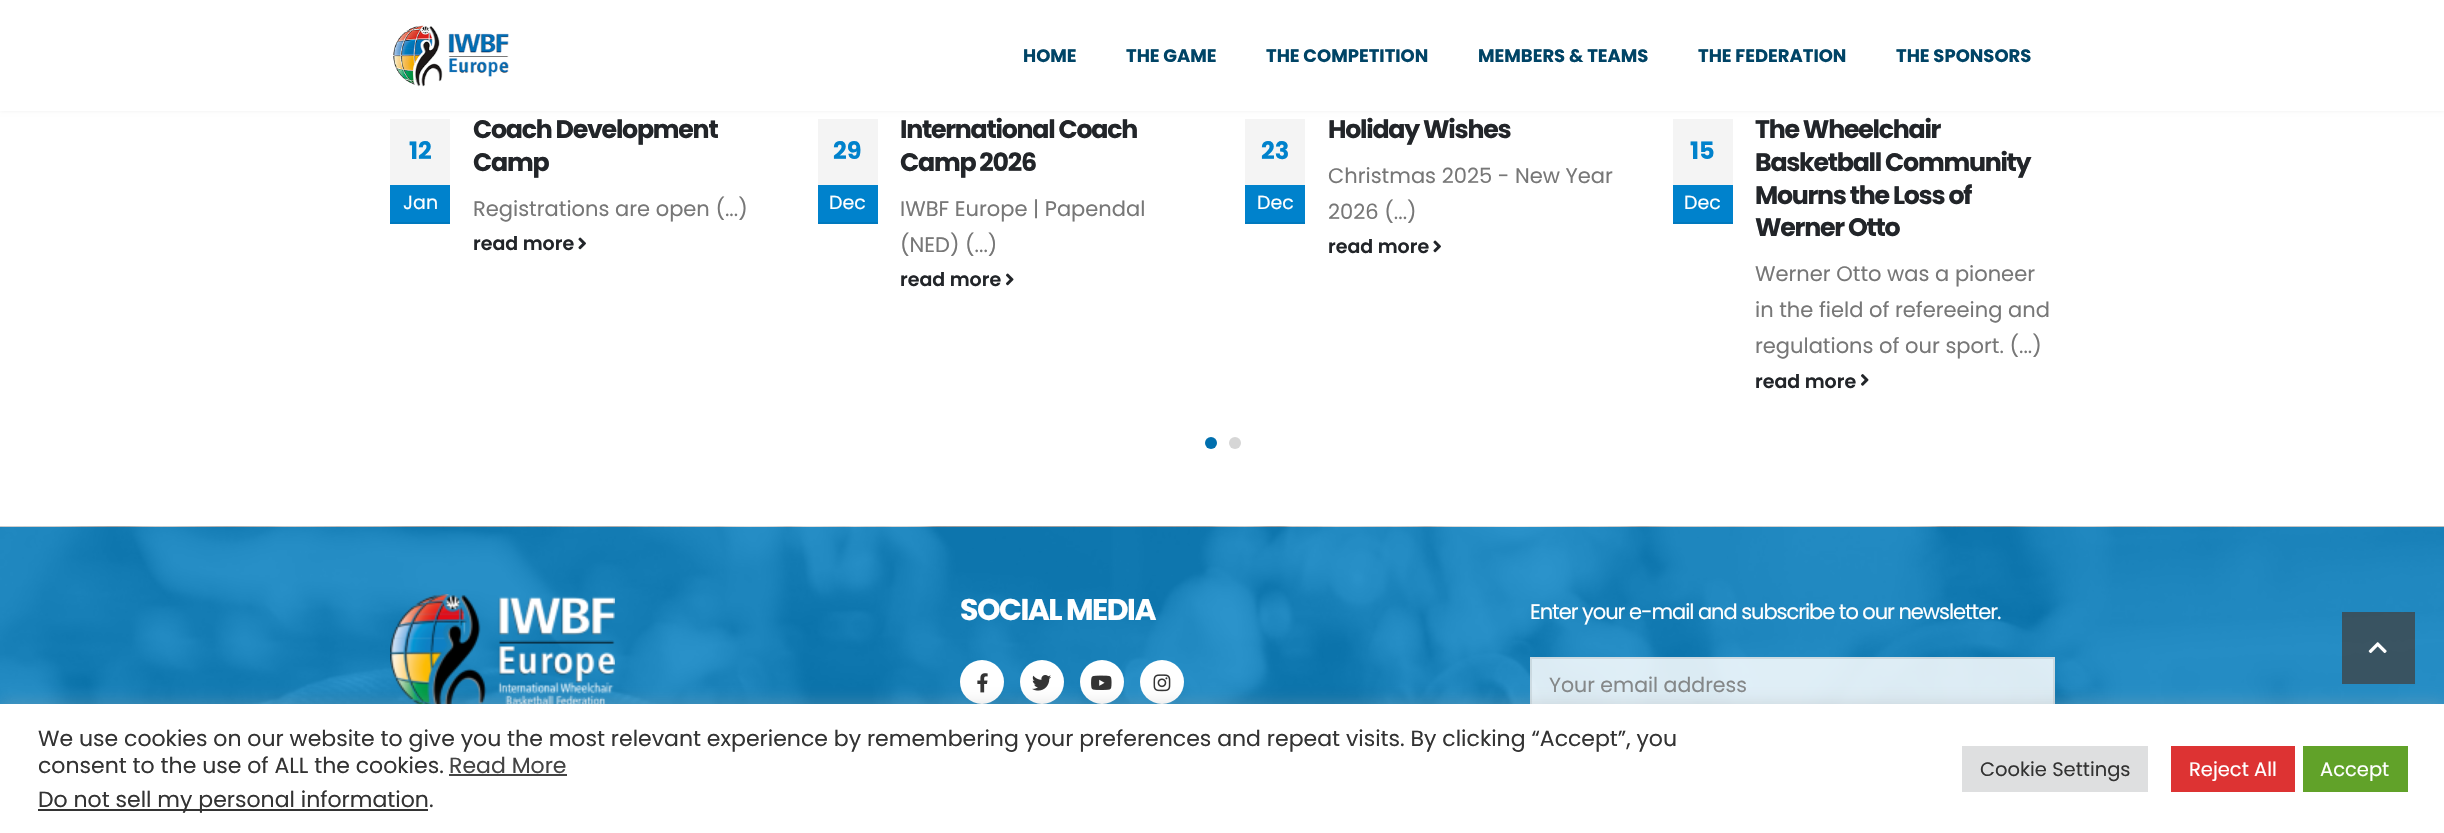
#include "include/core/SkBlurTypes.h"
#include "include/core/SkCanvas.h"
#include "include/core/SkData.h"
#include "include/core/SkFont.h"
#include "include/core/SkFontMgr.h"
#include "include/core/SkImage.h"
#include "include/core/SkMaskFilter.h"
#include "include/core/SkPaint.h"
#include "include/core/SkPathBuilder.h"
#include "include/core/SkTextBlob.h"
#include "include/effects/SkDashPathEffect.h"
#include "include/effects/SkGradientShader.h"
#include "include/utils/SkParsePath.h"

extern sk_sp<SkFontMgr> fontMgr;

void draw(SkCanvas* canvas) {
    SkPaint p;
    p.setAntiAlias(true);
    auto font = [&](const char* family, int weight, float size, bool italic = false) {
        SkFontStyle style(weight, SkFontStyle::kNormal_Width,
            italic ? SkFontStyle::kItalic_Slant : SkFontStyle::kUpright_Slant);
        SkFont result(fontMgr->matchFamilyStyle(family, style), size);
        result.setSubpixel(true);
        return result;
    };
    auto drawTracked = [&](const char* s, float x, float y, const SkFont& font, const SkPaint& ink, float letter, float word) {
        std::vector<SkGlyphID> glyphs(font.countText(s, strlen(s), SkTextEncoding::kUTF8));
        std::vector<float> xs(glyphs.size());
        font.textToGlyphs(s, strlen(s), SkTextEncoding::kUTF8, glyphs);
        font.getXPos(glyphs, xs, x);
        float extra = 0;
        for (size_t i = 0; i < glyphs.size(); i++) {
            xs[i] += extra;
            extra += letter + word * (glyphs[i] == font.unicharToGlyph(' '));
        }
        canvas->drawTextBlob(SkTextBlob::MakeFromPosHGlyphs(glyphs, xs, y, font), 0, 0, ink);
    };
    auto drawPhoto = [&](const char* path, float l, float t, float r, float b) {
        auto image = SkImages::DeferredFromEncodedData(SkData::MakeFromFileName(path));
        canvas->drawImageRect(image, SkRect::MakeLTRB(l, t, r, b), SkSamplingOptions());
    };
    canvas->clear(0xFFFFFFFF);
    p.setColor(0x0F000000);
    p.setMaskFilter(SkMaskFilter::MakeBlur(kNormal_SkBlurStyle, 2));
    canvas->drawRect(SkRect::MakeLTRB(0, 0, 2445, 111), p);
    p.setMaskFilter(nullptr);
    p.setColor(0xFFFFFFFF);
    canvas->drawRect(SkRect::MakeLTRB(0, 0, 2444, 111), p);
    drawPhoto("media/1.png", 393, 25, 509, 87);
    auto font1 = font("Poppins", 700, 18);
    p.setColor(0xFF004466);
    {
        const struct { const char* s; float x, y; } items[] = {
            {"HOME", 1023, 62},
            {"THE GAME", 1126, 62},
            {"THE COMPETITION", 1266, 62},
            {"MEMBERS & TEAMS", 1478, 62},
            {"THE FEDERATION", 1698, 62},
            {"THE SPONSORS", 1896, 62},
        };
        for (auto [s, x, y] : items) {
            canvas->drawString(s, x, y, font1, p);
        }
    }
    p.setColor(0xFFF4F4F4);
    canvas->drawRect(SkRect::MakeLTRB(390, 119, 450, 185), p);
    auto font2 = font("Poppins", 700, 24);
    p.setColor(0xFF0082CC);
    canvas->drawString("12", 409, 159, font2, p);
    canvas->drawRect(SkRect::MakeLTRB(390, 185, 450, 222), p);
    p.setColor(0xFF0079BE);
    canvas->drawRect(SkRect::MakeLTRB(390, 222, 450, 224), p);
    auto font3 = font("Poppins", 400, 19);
    p.setColor(0xFFFFFFFF);
    canvas->drawString("Jan", 403, 209, font3, p);
    auto font4 = font("Poppins", 700, 25.25f);
    p.setColor(0xFF222529);
    drawTracked("Coach Development", 473, 138, font4, p, -1.25f, 0);
    drawTracked("Camp", 473, 171, font4, p, -1.25f, 0);
    auto font5 = font("Poppins", 400, 21);
    p.setColor(0xFF777777);
    canvas->drawString("Registrations are open (...)", 473, 216, font5, p);
    auto font6 = font("Poppins", 600, 19);
    p.setColor(0xFF222529);
    canvas->drawString("read more", 473, 250, font6, p);
    drawPhoto("media/2.png", 578, 237, 586, 250);
    p.setColor(0xFFF4F4F4);
    canvas->drawRect(SkRect::MakeLTRB(818, 119, 878, 185), p);
    p.setColor(0xFF0082CC);
    canvas->drawString("29", 833, 159, font2, p);
    canvas->drawRect(SkRect::MakeLTRB(818, 185, 878, 222), p);
    p.setColor(0xFF0079BE);
    canvas->drawRect(SkRect::MakeLTRB(818, 222, 878, 224), p);
    p.setColor(0xFFFFFFFF);
    canvas->drawString("Dec", 829, 209, font3, p);
    p.setColor(0xFF222529);
    drawTracked("International Coach", 900, 138, font4, p, -1.25f, 0);
    drawTracked("Camp 2026", 900, 171, font4, p, -1.25f, 0);
    p.setColor(0xFF777777);
    canvas->drawString("IWBF Europe | Papendal", 900, 216, font5, p);
    canvas->drawString("(NED) (...)", 900, 252, font5, p);
    p.setColor(0xFF222529);
    canvas->drawString("read more", 900, 286, font6, p);
    drawPhoto("media/3.png", 1006, 273, 1014, 286);
    drawTracked("Holiday Wishes", 1328, 138, font4, p, -1.25f, 0);
    p.setColor(0xFFF4F4F4);
    canvas->drawRect(SkRect::MakeLTRB(1245, 119, 1305, 185), p);
    p.setColor(0xFF0082CC);
    canvas->drawString("23", 1261, 159, font2, p);
    canvas->drawRect(SkRect::MakeLTRB(1245, 185, 1305, 222), p);
    p.setColor(0xFF0079BE);
    canvas->drawRect(SkRect::MakeLTRB(1245, 222, 1305, 224), p);
    p.setColor(0xFFFFFFFF);
    canvas->drawString("Dec", 1257, 209, font3, p);
    p.setColor(0xFF777777);
    canvas->drawString("Christmas 2025 - New Year", 1328, 183, font5, p);
    canvas->drawString("2026 (...)", 1328, 219, font5, p);
    p.setColor(0xFF222529);
    canvas->drawString("read more", 1328, 253, font6, p);
    drawPhoto("media/2.png", 1433, 240, 1441, 253);
    p.setColor(0xFFF4F4F4);
    canvas->drawRect(SkRect::MakeLTRB(1673, 119, 1733, 185), p);
    p.setColor(0xFF0082CC);
    canvas->drawString("15", 1690, 159, font2, p);
    canvas->drawRect(SkRect::MakeLTRB(1673, 185, 1733, 222), p);
    p.setColor(0xFF0079BE);
    canvas->drawRect(SkRect::MakeLTRB(1673, 222, 1733, 224), p);
    p.setColor(0xFFFFFFFF);
    canvas->drawString("Dec", 1684, 209, font3, p);
    p.setColor(0xFF222529);
    {
        const struct { const char* s; float x, y; } items[] = {
            {"The Wheelchair", 1755, 138},
            {"Basketball Community", 1755, 171},
            {"Mourns the Loss of", 1755, 204},
            {"Werner Otto", 1755, 236},
        };
        for (auto [s, x, y] : items) {
            drawTracked(s, x, y, font4, p, -1.25f, 0);
        }
    }
    p.setColor(0xFF777777);
    {
        const struct { const char* s; float x, y; } items[] = {
            {"Werner Otto was a pioneer", 1755, 281},
            {"in the field of refereeing and", 1755, 317},
            {"regulations of our sport. (...)", 1755, 353},
        };
        for (auto [s, x, y] : items) {
            canvas->drawString(s, x, y, font5, p);
        }
    }
    p.setColor(0xFF222529);
    canvas->drawString("read more", 1755, 388, font6, p);
    drawPhoto("media/4.png", 1861, 374, 1869, 386);
    p.setColor(0xFF006FAE);
    canvas->drawCircle(1211, 443, 6, p);
    p.setColor(0xFFD6D6D6);
    canvas->drawCircle(1235, 443, 6, p);
    drawPhoto("media/5.png", 0, 526, 2444, 704);
    drawPhoto("media/6.png", 390, 594, 615, 704);
    auto font7 = font("Poppins", 700, 30);
    p.setColor(0xFFFFFFFF);
    drawTracked("SOCIAL MEDIA", 960, 620, font7, p, -1.5f, 0);
    canvas->drawCircle(982, 682, 22, p);
    drawPhoto("media/7.png", 977, 673, 988, 693);
    canvas->drawCircle(1042, 682, 22, p);
    drawPhoto("media/8.png", 1032, 675, 1051, 691);
    canvas->drawCircle(1102, 682, 22, p);
    drawPhoto("media/9.png", 1091, 675, 1112, 690);
    canvas->drawCircle(1162, 682, 22, p);
    drawPhoto("media/10.png", 1153, 674, 1171, 692);
    drawTracked("Enter your e-mail and subscribe to our newsletter.", 1530, 619, font5, p, -1.05f, 0);
    p.setColor(0xD9FFFFFF);
    canvas->drawRect(SkRect::MakeLTRB(1530, 657, 2055, 704), p);
    p.setStyle(SkPaint::kStroke_Style);
    p.setStrokeWidth(2);
    p.setColor(0x14000000);
    canvas->drawRect(SkRect::MakeLTRB(1531, 658, 2054, 713), p);
    auto font8 = font("Poppins", 400, 20.5f);
    p.setStyle(SkPaint::kFill_Style);
    p.setColor(0xFF848788);
    canvas->drawString("Your email address", 1549, 692, font8, p);
    p.setColor(0xBF404040);
    canvas->drawRect(SkRect::MakeLTRB(2342, 612, 2415, 684), p);
    drawPhoto("media/11.png", 2368, 642, 2387, 653);
    p.setColor(0x4DACABAB);
    p.setMaskFilter(SkMaskFilter::MakeBlur(kNormal_SkBlurStyle, 7.5f));
    canvas->drawRect(SkRect::MakeLTRB(0, 702, 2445, 833), p);
    p.setMaskFilter(nullptr);
    p.setColor(0xFFFFFFFF);
    canvas->drawRect(SkRect::MakeLTRB(0, 704, 2444, 833), p);
    auto font9 = font("Poppins", 400, 22);
    p.setColor(0xFF333333);
    canvas->drawString("We use cookies on our website to give you the most relevant experience by remembering your preferences and repeat visits. By clicking “Accept”, you", 38, 746, font9, p);
    canvas->drawString("consent to the use of ALL the cookies.", 38, 773, font9, p);
    p.setColor(0xFF444444);
    canvas->drawString("Read More", 449, 773, font9, p);
    canvas->drawRect(SkRect::MakeLTRB(449, 774, 567, 776), p);
    p.setColor(0xFF333333);
    canvas->drawRect(SkRect::MakeLTRB(38, 809, 428, 811), p);
    canvas->drawString("Do not sell my personal information.", 38, 807, font9, p);
    p.setColor(0xFFDEDFE0);
    canvas->drawRect(SkRect::MakeLTRB(1962, 746, 2148, 792), p);
    auto font10 = font("Poppins", 400, 19.5f);
    p.setColor(0xFF333333);
    canvas->drawString("Cookie Settings", 1980, 776, font10, p);
    p.setColor(0xFFDD3333);
    canvas->drawRect(SkRect::MakeLTRB(2171, 746, 2295, 792), p);
    p.setColor(0xFFFFFFFF);
    canvas->drawString("Reject All", 2189, 776, font10, p);
    p.setColor(0xFF61A229);
    canvas->drawRect(SkRect::MakeLTRB(2303, 746, 2408, 792), p);
    p.setColor(0xFFFFFFFF);
    canvas->drawString("Accept", 2320, 776, font10, p);
}
